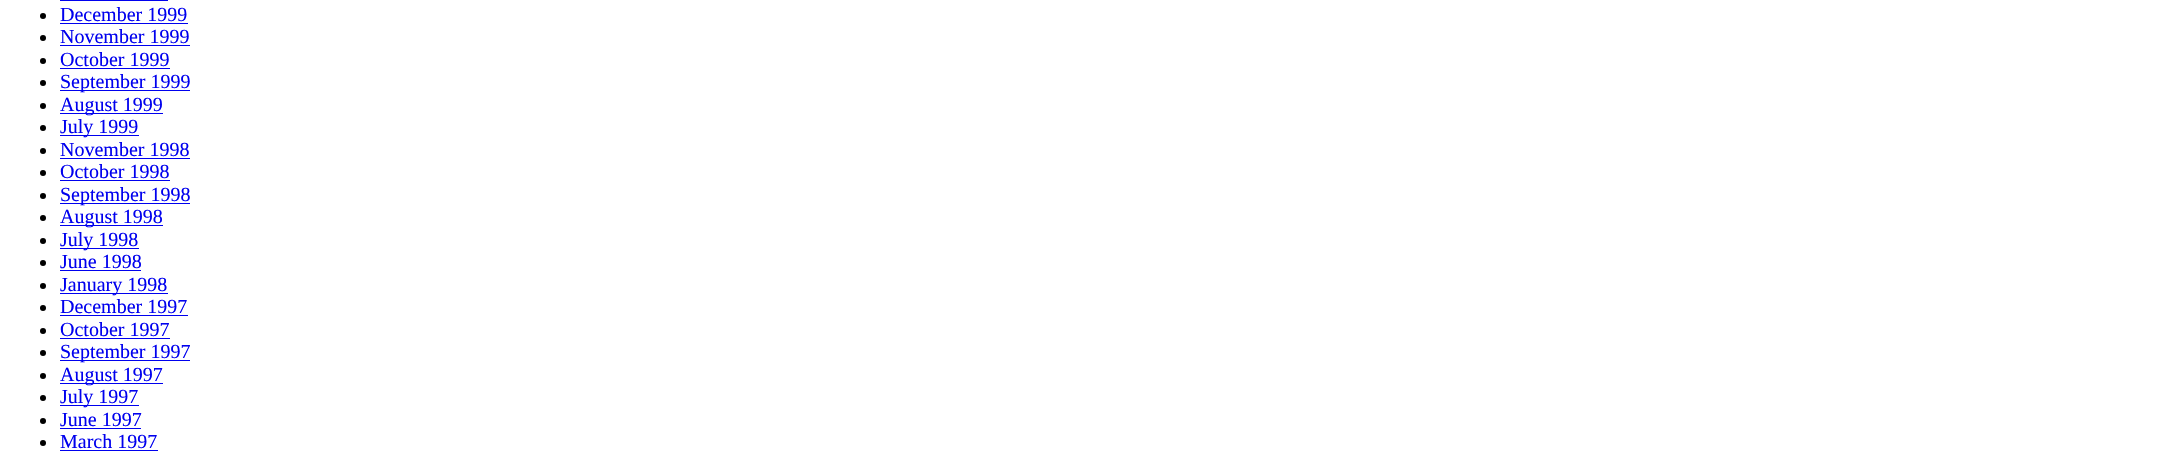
#include "include/core/SkBlurTypes.h"
#include "include/core/SkCanvas.h"
#include "include/core/SkData.h"
#include "include/core/SkFont.h"
#include "include/core/SkFontMgr.h"
#include "include/core/SkImage.h"
#include "include/core/SkMaskFilter.h"
#include "include/core/SkPaint.h"
#include "include/core/SkPathBuilder.h"
#include "include/core/SkTextBlob.h"
#include "include/effects/SkDashPathEffect.h"
#include "include/effects/SkGradientShader.h"
#include "include/utils/SkParsePath.h"

extern sk_sp<SkFontMgr> fontMgr;

void draw(SkCanvas* canvas) {
    SkPaint p;
    p.setAntiAlias(true);
    auto font = [&](const char* family, int weight, float size, bool italic = false) {
        SkFontStyle style(weight, SkFontStyle::kNormal_Width,
            italic ? SkFontStyle::kItalic_Slant : SkFontStyle::kUpright_Slant);
        SkFont result(fontMgr->matchFamilyStyle(family, style), size);
        result.setSubpixel(true);
        return result;
    };
    canvas->clear(0xFFFFFFFF);
    p.setColor(0xFF0000EE);
    canvas->drawRect(SkRect::MakeLTRB(60, 0, 168, 1), p);
    p.setColor(0xFF000000);
    canvas->drawCircle(43, 16, 3, p);
    auto font1 = font("Liberation Serif", 400, 20);
    p.setColor(0xFF0000EE);
    canvas->drawString("December 1999", 60, 21, font1, p);
    canvas->drawRect(SkRect::MakeLTRB(60, 23, 188, 24), p);
    p.setColor(0xFF000000);
    canvas->drawCircle(43, 38, 3, p);
    p.setColor(0xFF0000EE);
    canvas->drawString("November 1999", 60, 43, font1, p);
    canvas->drawRect(SkRect::MakeLTRB(60, 45, 190, 46), p);
    p.setColor(0xFF000000);
    canvas->drawCircle(43, 61, 3, p);
    p.setColor(0xFF0000EE);
    canvas->drawString("October 1999", 60, 66, font1, p);
    canvas->drawRect(SkRect::MakeLTRB(60, 68, 170, 69), p);
    p.setColor(0xFF000000);
    canvas->drawCircle(43, 83, 3, p);
    p.setColor(0xFF0000EE);
    canvas->drawRect(SkRect::MakeLTRB(60, 90, 190, 91), p);
    canvas->drawString("September 1999", 60, 88, font1, p);
    p.setColor(0xFF000000);
    canvas->drawCircle(43, 106, 3, p);
    p.setColor(0xFF0000EE);
    canvas->drawRect(SkRect::MakeLTRB(60, 113, 163, 114), p);
    canvas->drawString("August 1999", 60, 111, font1, p);
    p.setColor(0xFF000000);
    canvas->drawCircle(43, 128, 3, p);
    p.setColor(0xFF0000EE);
    canvas->drawRect(SkRect::MakeLTRB(60, 135, 139, 136), p);
    canvas->drawString("July 1999", 60, 133, font1, p);
    p.setColor(0xFF000000);
    canvas->drawCircle(43, 151, 3, p);
    p.setColor(0xFF0000EE);
    canvas->drawString("November 1998", 60, 156, font1, p);
    canvas->drawRect(SkRect::MakeLTRB(60, 158, 190, 159), p);
    p.setColor(0xFF000000);
    canvas->drawCircle(43, 173, 3, p);
    p.setColor(0xFF0000EE);
    canvas->drawString("October 1998", 60, 178, font1, p);
    canvas->drawRect(SkRect::MakeLTRB(60, 180, 170, 181), p);
    p.setColor(0xFF000000);
    canvas->drawCircle(43, 196, 3, p);
    p.setColor(0xFF0000EE);
    canvas->drawRect(SkRect::MakeLTRB(60, 203, 190, 204), p);
    canvas->drawString("September 1998", 60, 201, font1, p);
    p.setColor(0xFF000000);
    canvas->drawCircle(43, 218, 3, p);
    p.setColor(0xFF0000EE);
    canvas->drawRect(SkRect::MakeLTRB(60, 225, 163, 226), p);
    canvas->drawString("August 1998", 60, 223, font1, p);
    p.setColor(0xFF000000);
    canvas->drawCircle(43, 241, 3, p);
    p.setColor(0xFF0000EE);
    canvas->drawRect(SkRect::MakeLTRB(60, 248, 139, 249), p);
    canvas->drawString("July 1998", 60, 246, font1, p);
    p.setColor(0xFF000000);
    canvas->drawCircle(43, 263, 3, p);
    p.setColor(0xFF0000EE);
    canvas->drawString("June 1998", 60, 268, font1, p);
    canvas->drawRect(SkRect::MakeLTRB(60, 270, 141, 271), p);
    p.setColor(0xFF000000);
    canvas->drawCircle(43, 286, 3, p);
    p.setColor(0xFF0000EE);
    canvas->drawRect(SkRect::MakeLTRB(60, 293, 168, 294), p);
    canvas->drawString("January 1998", 60, 291, font1, p);
    p.setColor(0xFF000000);
    canvas->drawCircle(43, 308, 3, p);
    p.setColor(0xFF0000EE);
    canvas->drawString("December 1997", 60, 313, font1, p);
    canvas->drawRect(SkRect::MakeLTRB(60, 315, 188, 316), p);
    p.setColor(0xFF000000);
    canvas->drawCircle(43, 331, 3, p);
    p.setColor(0xFF0000EE);
    canvas->drawString("October 1997", 60, 336, font1, p);
    canvas->drawRect(SkRect::MakeLTRB(60, 338, 170, 339), p);
    p.setColor(0xFF000000);
    canvas->drawCircle(43, 353, 3, p);
    p.setColor(0xFF0000EE);
    canvas->drawRect(SkRect::MakeLTRB(60, 360, 190, 361), p);
    canvas->drawString("September 1997", 60, 358, font1, p);
    p.setColor(0xFF000000);
    canvas->drawCircle(43, 376, 3, p);
    p.setColor(0xFF0000EE);
    canvas->drawRect(SkRect::MakeLTRB(60, 383, 163, 384), p);
    canvas->drawString("August 1997", 60, 381, font1, p);
    p.setColor(0xFF000000);
    canvas->drawCircle(43, 398, 3, p);
    p.setColor(0xFF0000EE);
    canvas->drawRect(SkRect::MakeLTRB(60, 405, 139, 406), p);
    canvas->drawString("July 1997", 60, 403, font1, p);
    p.setColor(0xFF000000);
    canvas->drawCircle(43, 421, 3, p);
    p.setColor(0xFF0000EE);
    canvas->drawString("June 1997", 60, 426, font1, p);
    canvas->drawRect(SkRect::MakeLTRB(60, 428, 141, 429), p);
    p.setColor(0xFF000000);
    canvas->drawCircle(43, 443, 3, p);
    p.setColor(0xFF0000EE);
    canvas->drawString("March 1997", 60, 448, font1, p);
    canvas->drawRect(SkRect::MakeLTRB(60, 450, 158, 451), p);
}
